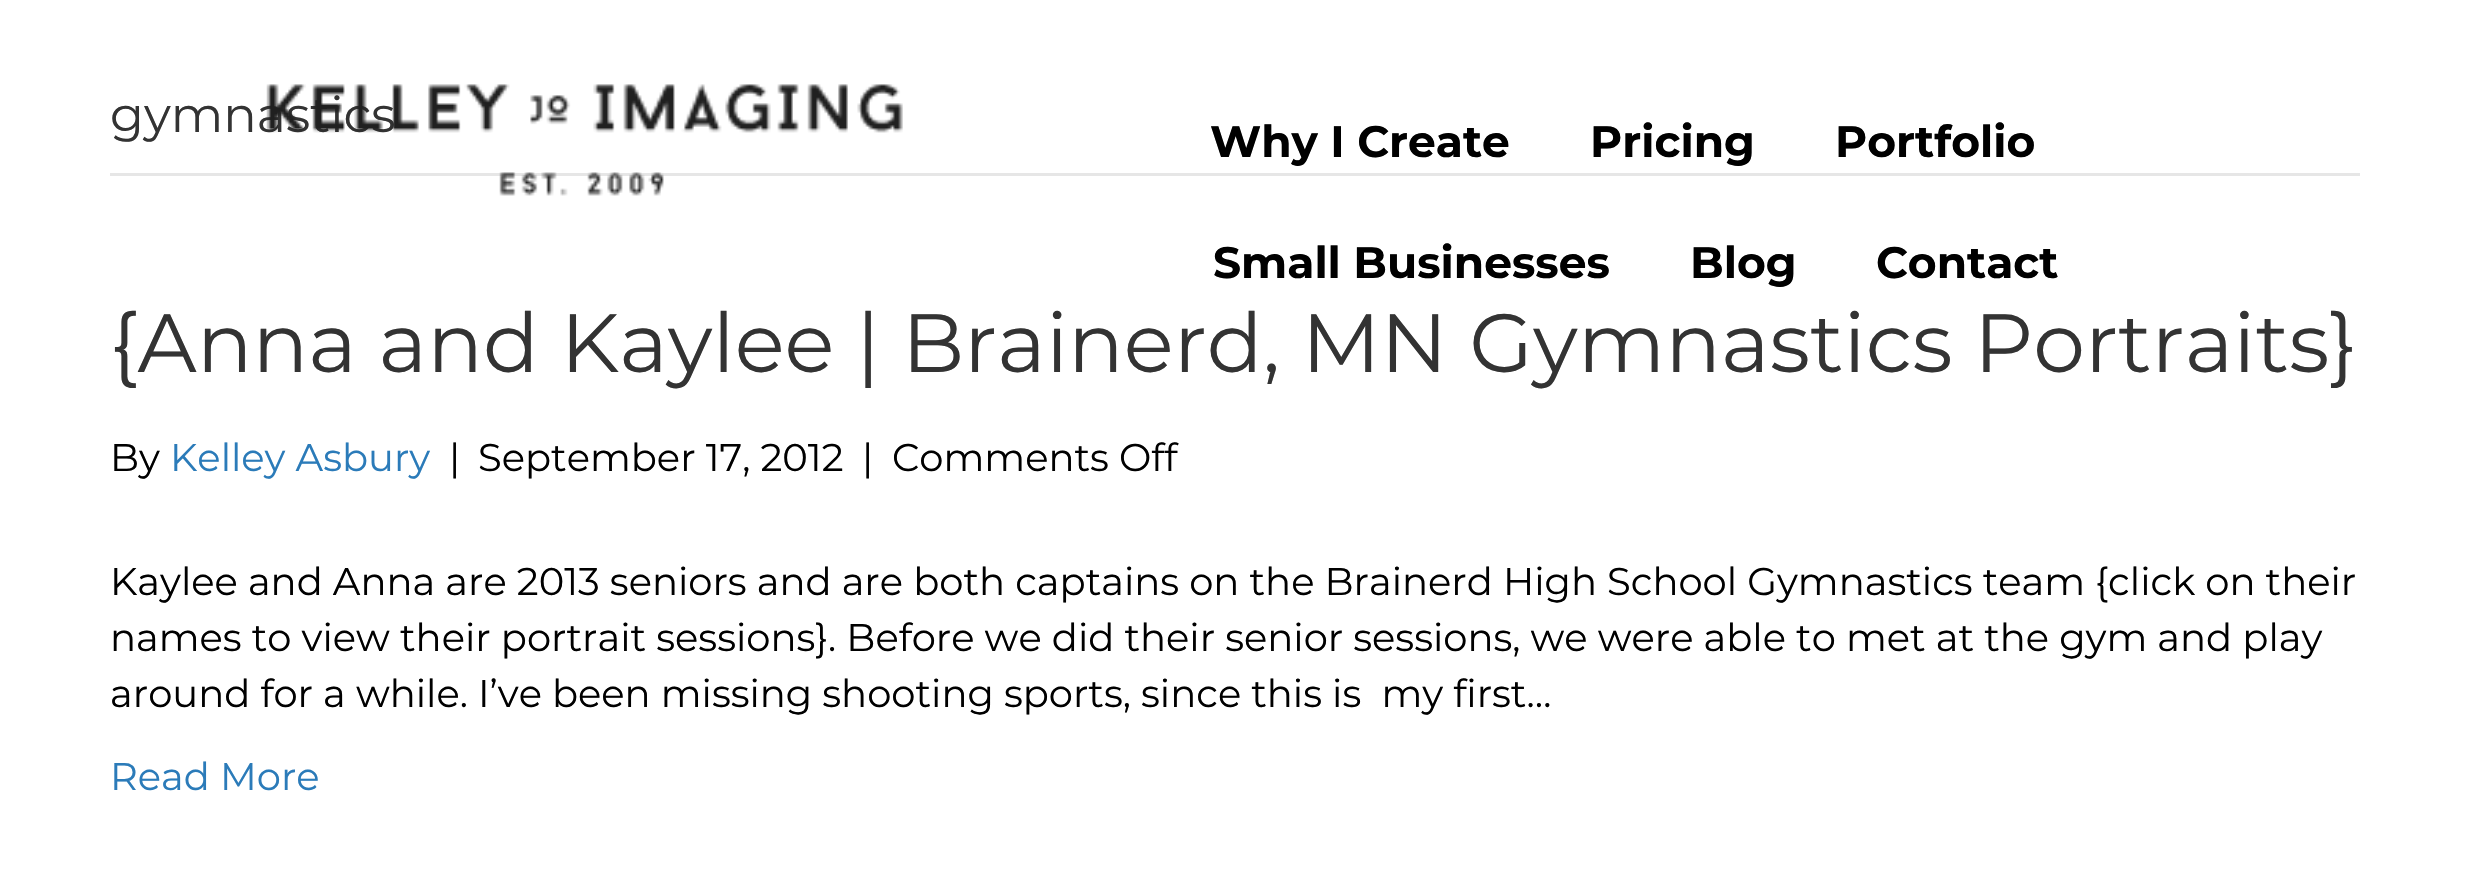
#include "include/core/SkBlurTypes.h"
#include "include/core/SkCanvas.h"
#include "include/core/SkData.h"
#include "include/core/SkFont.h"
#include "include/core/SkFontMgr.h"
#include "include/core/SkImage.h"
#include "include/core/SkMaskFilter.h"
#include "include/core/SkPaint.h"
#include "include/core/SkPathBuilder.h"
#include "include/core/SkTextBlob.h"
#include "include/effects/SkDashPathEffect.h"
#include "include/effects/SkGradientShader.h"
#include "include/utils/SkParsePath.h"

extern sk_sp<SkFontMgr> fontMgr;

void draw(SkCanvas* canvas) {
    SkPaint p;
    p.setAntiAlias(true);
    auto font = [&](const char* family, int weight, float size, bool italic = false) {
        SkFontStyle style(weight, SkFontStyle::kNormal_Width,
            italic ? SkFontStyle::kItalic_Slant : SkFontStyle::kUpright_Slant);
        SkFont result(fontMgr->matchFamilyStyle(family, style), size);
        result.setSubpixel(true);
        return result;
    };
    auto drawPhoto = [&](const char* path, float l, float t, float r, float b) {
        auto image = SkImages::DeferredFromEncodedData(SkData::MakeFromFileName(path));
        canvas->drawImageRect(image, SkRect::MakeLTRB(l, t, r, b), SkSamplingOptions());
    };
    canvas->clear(0xFFFFFFFF);
    p.setColor(0xFFE6E6E6);
    canvas->drawRect(SkRect::MakeLTRB(110, 173, 2360, 176), p);
    auto font1 = font("Montserrat", 400, 49.5f);
    p.setColor(0xFF333333);
    canvas->drawString("gymnastics", 110, 132, font1, p);
    auto font2 = font("Montserrat", 400, 82.5f);
    canvas->drawString("{Anna and Kaylee | Brainerd, MN Gymnastics Portraits}", 110, 372, font2, p);
    auto font3 = font("Montserrat", 400, 38.5f);
    p.setColor(0xFF000000);
    canvas->drawString("By", 110, 471, font3, p);
    p.setColor(0xFF2B7BB9);
    canvas->drawString("Kelley Asbury", 170, 471, font3, p);
    p.setColor(0xFF000000);
    {
        const struct { const char* s; float x, y; } items[] = {
            {"|", 449, 471},
            {"September 17, 2012", 478, 471},
            {"|", 862, 471},
            {"Comments Off", 892, 471},
            {"Kaylee and Anna are 2013 seniors and are both captains on the Brainerd High School Gymnastics team {click on their", 110, 595},
            {"names to view their portrait sessions}. Before we did their senior sessions, we were able to met at the gym and play", 110, 651},
            {"around for a while. I’ve been missing shooting sports, since this is  my first…", 110, 707},
        };
        for (auto [s, x, y] : items) {
            canvas->drawString(s, x, y, font3, p);
        }
    }
    p.setColor(0xFF2B7BB9);
    canvas->drawString("Read More", 110, 790, font3, p);
    drawPhoto("media/1.png", 266, 84, 903, 196);
    auto font4 = font("Montserrat", 700, 44);
    p.setColor(0xFF000000);
    {
        const struct { const char* s; float x, y; } items[] = {
            {"Why I Create", 1210, 157},
            {"Pricing", 1590, 157},
            {"Portfolio", 1835, 157},
            {"Small Businesses", 1213, 278},
            {"Blog", 1690, 278},
            {"Contact", 1876, 278},
        };
        for (auto [s, x, y] : items) {
            canvas->drawString(s, x, y, font4, p);
        }
    }
}
